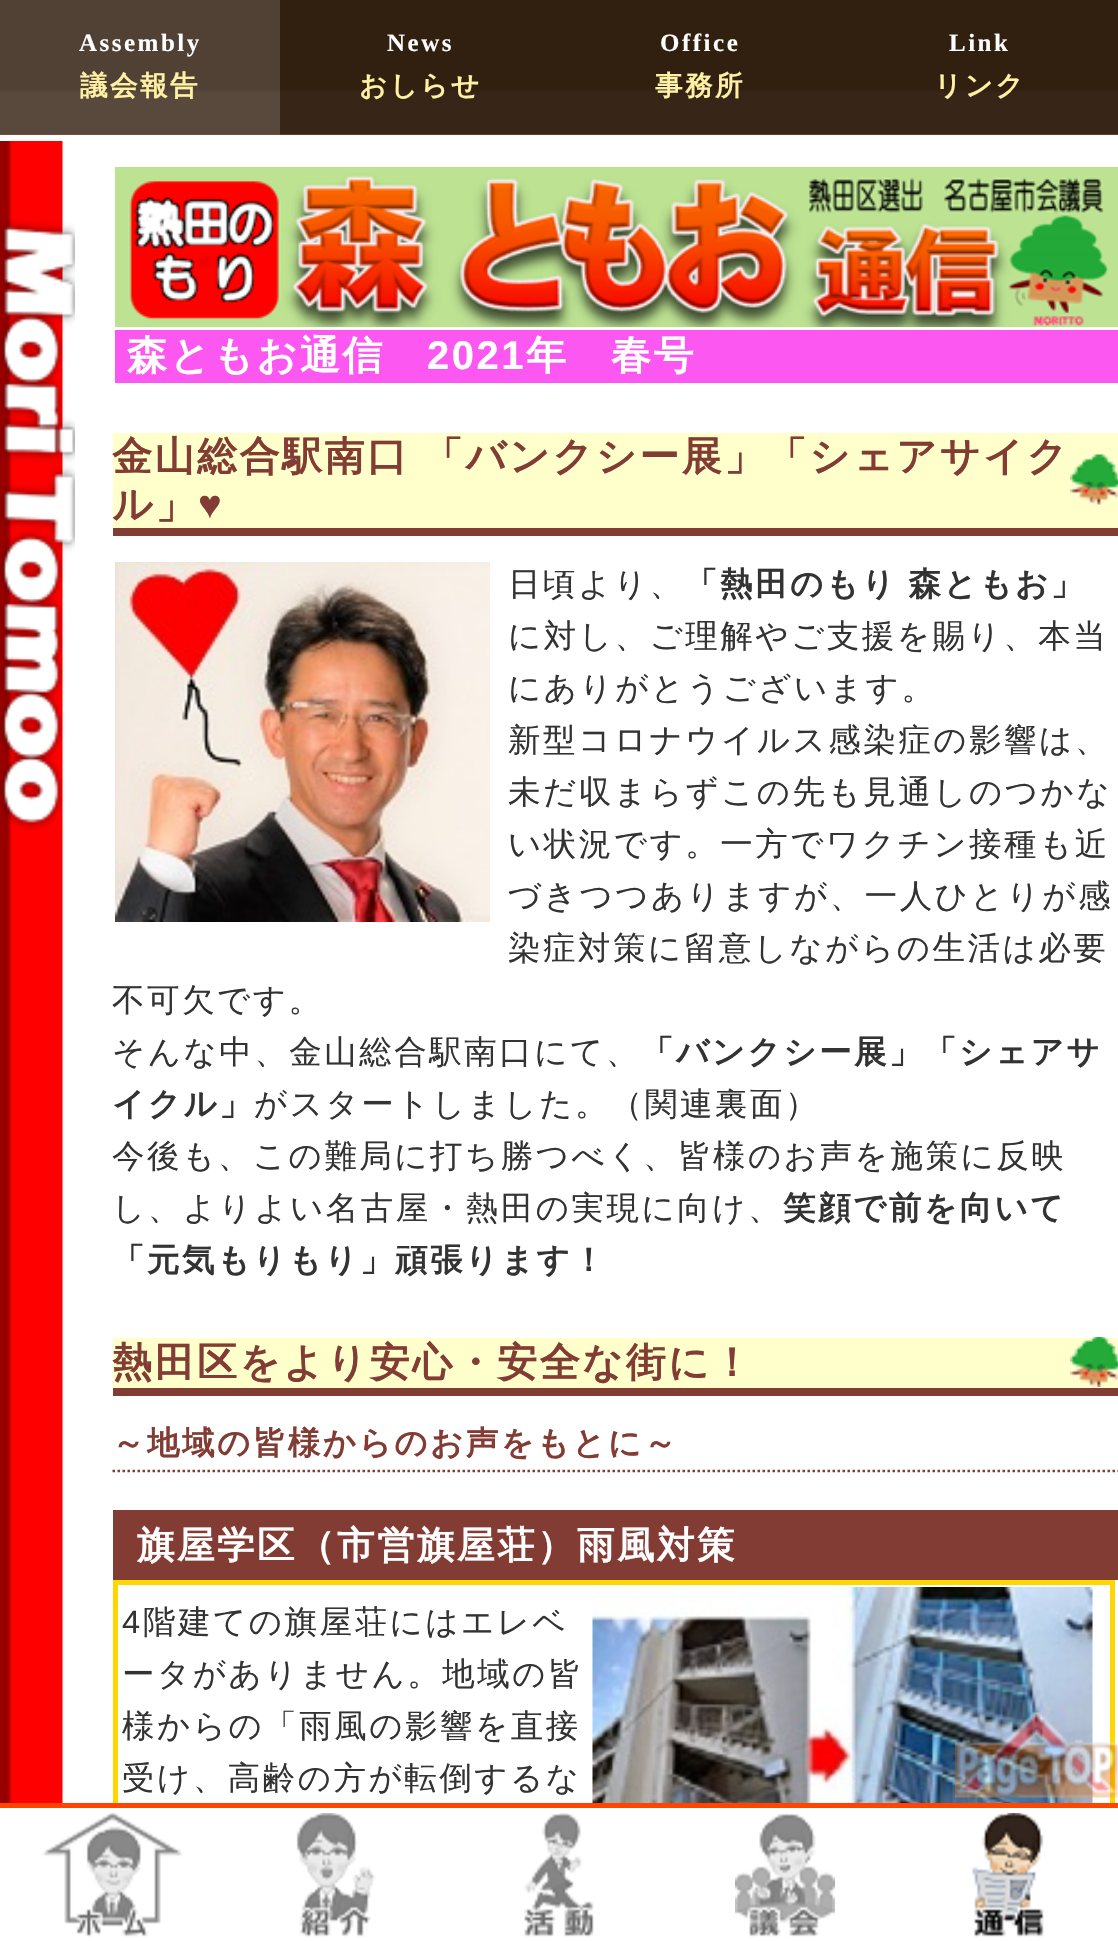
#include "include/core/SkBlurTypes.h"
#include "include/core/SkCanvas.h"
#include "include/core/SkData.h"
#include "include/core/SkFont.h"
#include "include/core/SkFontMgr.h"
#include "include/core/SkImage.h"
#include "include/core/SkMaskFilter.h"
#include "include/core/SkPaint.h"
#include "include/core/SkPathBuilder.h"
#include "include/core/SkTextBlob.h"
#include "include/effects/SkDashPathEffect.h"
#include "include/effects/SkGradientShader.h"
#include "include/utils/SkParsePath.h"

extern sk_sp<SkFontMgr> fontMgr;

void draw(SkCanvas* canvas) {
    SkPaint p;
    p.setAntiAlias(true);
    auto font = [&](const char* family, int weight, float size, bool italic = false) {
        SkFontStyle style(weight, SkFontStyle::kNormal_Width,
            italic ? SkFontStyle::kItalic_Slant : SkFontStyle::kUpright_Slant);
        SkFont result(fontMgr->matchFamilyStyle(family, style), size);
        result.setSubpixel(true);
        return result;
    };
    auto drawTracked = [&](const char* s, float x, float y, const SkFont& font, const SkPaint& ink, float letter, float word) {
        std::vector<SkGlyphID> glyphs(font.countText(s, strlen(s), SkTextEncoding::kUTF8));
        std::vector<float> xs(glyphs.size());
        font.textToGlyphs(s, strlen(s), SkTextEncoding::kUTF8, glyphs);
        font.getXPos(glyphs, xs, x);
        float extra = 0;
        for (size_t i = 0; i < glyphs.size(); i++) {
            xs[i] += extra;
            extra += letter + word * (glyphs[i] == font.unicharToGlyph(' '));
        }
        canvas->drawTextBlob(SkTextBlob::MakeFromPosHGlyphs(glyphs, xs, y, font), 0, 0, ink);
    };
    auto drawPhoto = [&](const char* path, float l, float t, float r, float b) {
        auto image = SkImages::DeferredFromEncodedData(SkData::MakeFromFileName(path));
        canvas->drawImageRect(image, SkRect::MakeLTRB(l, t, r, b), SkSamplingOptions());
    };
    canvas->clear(0xFFFFFFFF);
    p.setColor(0xFF98534B);
    canvas->drawRect(SkRect::MakeLTRB(0, 134, 1118, 135), p);
    drawPhoto("media/1.png", 0, 0, 280, 135);
    auto font1 = font("Liberation Serif", 700, 25);
    p.setColor(0xFFFFFFFF);
    drawTracked("Assembly", 79, 51, font1, p, 2.5f, 0);
    auto font2 = font("WenQuanYi Zen Hei", 700, 27.5f);
    p.setColor(0xFFFFF1A4);
    drawTracked("議会報告", 80, 95, font2, p, 2.5f, 0);
    drawPhoto("media/2.png", 280, 0, 560, 135);
    p.setColor(0xFFFFFFFF);
    drawTracked("News", 387, 51, font1, p, 2.5f, 0);
    p.setColor(0xFFFFF1A4);
    drawTracked("おしらせ", 359, 95, font2, p, 2.5f, 0);
    drawPhoto("media/2.png", 560, 0, 840, 135);
    p.setColor(0xFFFFFFFF);
    drawTracked("Office", 660, 51, font1, p, 2.5f, 0);
    p.setColor(0xFFFFF1A4);
    drawTracked("事務所", 655, 95, font2, p, 2.5f, 0);
    drawPhoto("media/3.png", 840, 0, 1118, 135);
    p.setColor(0xFFFFFFFF);
    drawTracked("Link", 949, 51, font1, p, 2.5f, 0);
    p.setColor(0xFFFFF1A4);
    drawTracked("リンク", 934, 95, font2, p, 2.5f, 0);
    drawPhoto("media/4.png", 0, 141, 63, 1803);
    drawPhoto("media/5.png", 0, 219, 75, 831);
    drawPhoto("media/6.png", 115, 167, 1118, 327);
    p.setColor(0xFFFD57F1);
    canvas->drawRect(SkRect::MakeLTRB(115, 330, 1118, 383), p);
    auto font3 = font("WenQuanYi Zen Hei", 700, 40);
    p.setColor(0xFFFFFFFF);
    drawTracked("森ともお通信", 127, 369, font3, p, 2.5f, 0);
    auto font4 = font("Liberation Sans", 700, 40);
    drawTracked("2021", 427, 369, font4, p, 2.5f, 0);
    drawTracked("年　春号", 526, 369, font3, p, 2.5f, 0);
    p.setColor(0xFFFFFFCC);
    canvas->drawRect(SkRect::MakeLTRB(113, 433, 1118, 528), p);
    drawPhoto("media/7.png", 1070, 454, 1118, 505);
    p.setColor(0xFF823C34);
    canvas->drawRect(SkRect::MakeLTRB(113, 528, 1118, 536), p);
    drawTracked("金山総合駅南口 「バンクシー展」「シェアサイク", 112, 470, font3, p, 2.5f, -1);
    drawTracked("ル」", 112, 518, font3, p, 2.5f, 0);
    drawTracked("♥", 198, 518, font4, p, 2.5f, 0);
    drawPhoto("media/8.png", 115, 562, 490, 922);
    auto font5 = font("WenQuanYi Zen Hei", 500, 32.5f);
    p.setColor(0xFF333333);
    drawTracked("日頃より、", 508, 595, font5, p, 2.5f, 0);
    auto font6 = font("WenQuanYi Zen Hei", 700, 32.5f);
    drawTracked("「熱田のもり 森ともお」", 685, 595, font6, p, 2.5f, -1);
    {
        const struct { const char* s; float x, y; } items[] = {
            {"に対し、ご理解やご支援を賜り、本当", 508, 647},
            {"にありがとうございます。", 508, 699},
            {"新型コロナウイルス感染症の影響は、", 508, 751},
            {"未だ収まらずこの先も見通しのつかな", 508, 803},
            {"い状況です。一方でワクチン接種も近", 508, 855},
            {"づきつつありますが、一人ひとりが感", 508, 907},
            {"染症対策に留意しながらの生活は必要", 508, 959},
            {"不可欠です。", 112, 1011},
            {"そんな中、金山総合駅南口にて、", 112, 1063},
        };
        for (auto [s, x, y] : items) {
            drawTracked(s, x, y, font5, p, 2.5f, 0);
        }
    }
    drawTracked("「バンクシー展」「シェアサ", 641, 1063, font6, p, 2.5f, 0);
    drawTracked("イクル」", 112, 1115, font6, p, 2.5f, 0);
    {
        const struct { const char* s; float x, y; } items[] = {
            {"がスタートしました。（関連裏面）", 254, 1115},
            {"今後も、この難局に打ち勝つべく、皆様のお声を施策に反映", 112, 1167},
            {"し、よりよい名古屋・熱田の実現に向け、", 112, 1219},
        };
        for (auto [s, x, y] : items) {
            drawTracked(s, x, y, font5, p, 2.5f, 0);
        }
    }
    drawTracked("笑顔で前を向いて", 783, 1219, font6, p, 2.5f, 0);
    drawTracked("「元気もりもり」頑張ります！", 112, 1271, font6, p, 2.5f, 0);
    p.setColor(0xFFFFFFCC);
    canvas->drawRect(SkRect::MakeLTRB(113, 1338, 1118, 1388), p);
    drawPhoto("media/9.png", 1070, 1337, 1118, 1387);
    p.setColor(0xFF823C34);
    canvas->drawRect(SkRect::MakeLTRB(113, 1388, 1118, 1396), p);
    drawTracked("熱田区をより安心・安全な街に！", 112, 1376, font3, p, 2.5f, 0);
    p.setStyle(SkPaint::kStroke_Style);
    p.setStrokeWidth(2.5f);
    p.setPathEffect(SkDashPathEffect::Make({{2.5f, 2.5f}}, 0));
    canvas->drawPath(SkPathBuilder().moveTo(112.5f, 1471).lineTo(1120, 1471).detach(), p);
    p.setPathEffect(nullptr);
    p.setStyle(SkPaint::kFill_Style);
    drawTracked("～地域の皆様からのお声をもとに～", 112, 1454, font6, p, 2.5f, 0);
    canvas->drawRect(SkRect::MakeLTRB(113, 1510, 1118, 1580), p);
    auto font7 = font("WenQuanYi Zen Hei", 700, 37.5f);
    p.setColor(0xFFFFFFFF);
    drawTracked("旗屋学区（市営旗屋荘）雨風対策", 137, 1558, font7, p, 2.5f, 0);
    p.setStyle(SkPaint::kStroke_Style);
    p.setStrokeWidth(5);
    p.setColor(0xFFFFD700);
    canvas->drawRect(SkRect::MakeLTRB(115.5f, 1582.5f, 1112.5f, 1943.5f), p);
    auto font8 = font("Liberation Sans", 400, 32.5f);
    p.setStyle(SkPaint::kFill_Style);
    p.setColor(0xFF333333);
    drawTracked("4", 122, 1633, font8, p, 2.5f, 0);
    {
        const struct { const char* s; float x, y; } items[] = {
            {"階建ての旗屋荘にはエレベ", 143, 1633},
            {"ータがありません。地域の皆", 122, 1685},
            {"様からの「雨風の影響を直接", 122, 1737},
            {"受け、高齢の方が転倒するな", 122, 1789},
        };
        for (auto [s, x, y] : items) {
            drawTracked(s, x, y, font5, p, 2.5f, 0);
        }
    }
    drawPhoto("media/10.png", 592, 1587, 1093, 1803);
    drawPhoto("media/11.png", 955, 1712, 1118, 1798);
    p.setColor(0xFFFFFFFF);
    canvas->drawRect(SkRect::MakeLTRB(113, 1808, 1115, 1941), p);
    p.setColor(0xFFFF4500);
    canvas->drawRect(SkRect::MakeLTRB(0, 1803, 1118, 1808), p);
    drawPhoto("media/12.png", 42, 1813, 183, 1937);
    drawPhoto("media/13.png", 296, 1813, 376, 1937);
    drawPhoto("media/14.png", 524, 1813, 594, 1937);
    drawPhoto("media/15.png", 735, 1813, 835, 1937);
    drawPhoto("media/16.png", 972, 1813, 1044, 1937);
}
